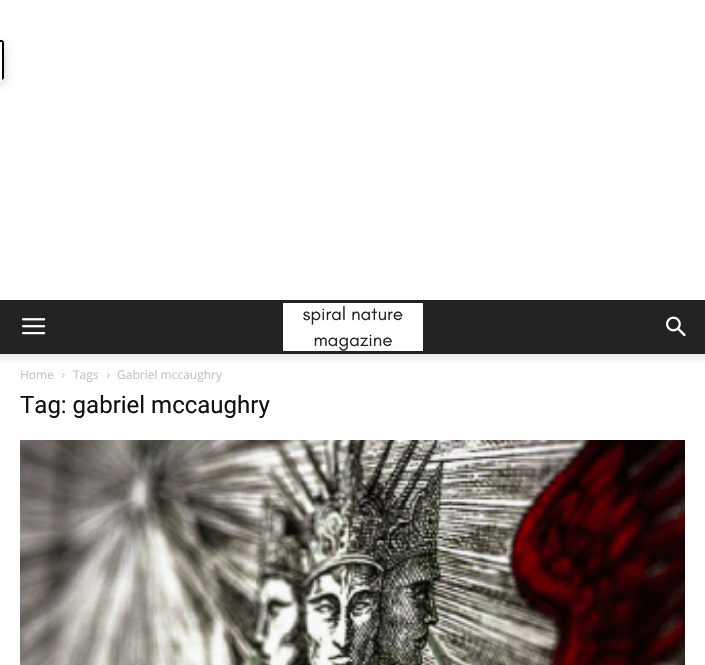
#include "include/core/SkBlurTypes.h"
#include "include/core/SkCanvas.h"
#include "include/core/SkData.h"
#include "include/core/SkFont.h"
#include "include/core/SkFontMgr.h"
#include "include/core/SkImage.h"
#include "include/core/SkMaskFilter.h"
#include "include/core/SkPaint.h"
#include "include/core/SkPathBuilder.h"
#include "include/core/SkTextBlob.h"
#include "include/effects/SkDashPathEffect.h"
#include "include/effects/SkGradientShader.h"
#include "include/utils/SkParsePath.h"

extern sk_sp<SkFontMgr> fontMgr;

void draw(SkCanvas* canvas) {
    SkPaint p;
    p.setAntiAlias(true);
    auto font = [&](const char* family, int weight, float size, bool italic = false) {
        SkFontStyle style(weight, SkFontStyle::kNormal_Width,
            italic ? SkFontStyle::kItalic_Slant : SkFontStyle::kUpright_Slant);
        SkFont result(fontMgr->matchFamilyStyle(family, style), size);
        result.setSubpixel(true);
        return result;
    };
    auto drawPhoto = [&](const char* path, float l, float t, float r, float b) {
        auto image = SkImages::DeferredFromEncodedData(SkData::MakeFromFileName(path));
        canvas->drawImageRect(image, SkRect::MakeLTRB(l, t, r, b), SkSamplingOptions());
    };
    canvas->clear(0xFFFFFFFF);
    p.setColor(0x33000000);
    p.setMaskFilter(SkMaskFilter::MakeBlur(kNormal_SkBlurStyle, 5));
    canvas->drawRoundRect(SkRect::MakeLTRB(-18, 44, 4, 84), 3, 3, p);
    p.setMaskFilter(nullptr);
    p.setStyle(SkPaint::kStroke_Style);
    p.setStrokeWidth(2);
    p.setColor(0xFF000000);
    canvas->drawPath(SkPathBuilder().moveTo(-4, 41).lineTo(1, 41).cubicTo(2, 41, 3, 42, 3, 43).lineTo(3, 77).cubicTo(3, 78, 2, 79, 1, 79).lineTo(-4, 79).close().detach(), p);
    p.setStyle(SkPaint::kFill_Style);
    p.setColor(0xFFFFFFFF);
    canvas->drawRect(SkRect::MakeLTRB(0, 42, 2, 82), p);
    p.setColor(0xFF222222);
    canvas->drawRect(SkRect::MakeLTRB(0, 300, 705, 354), p);
    drawPhoto("media/1.png", 22, 318, 46, 335);
    drawPhoto("media/2.png", 283, 303, 423, 351);
    drawPhoto("media/3.png", 666, 316, 686, 337);
    drawPhoto("media/4.png", 0, 354, 705, 363);
    auto font1 = font("Open Sans", 400, 12);
    p.setColor(0xFFC3C3C3);
    canvas->drawString("Home", 20, 379, font1, p);
    drawPhoto("media/5.png", 62, 373, 65, 378);
    canvas->drawString("Tags", 73, 379, font1, p);
    drawPhoto("media/5.png", 107, 373, 110, 378);
    canvas->drawString("Gabriel mccaughry", 117, 379, font1, p);
    auto font2 = font("Roboto", 400, 24);
    p.setColor(0xFF111111);
    canvas->drawString("Tag: gabriel mccaughry", 20, 413, font2, p);
    drawPhoto("media/6.png", 20, 440, 685, 665);
}
